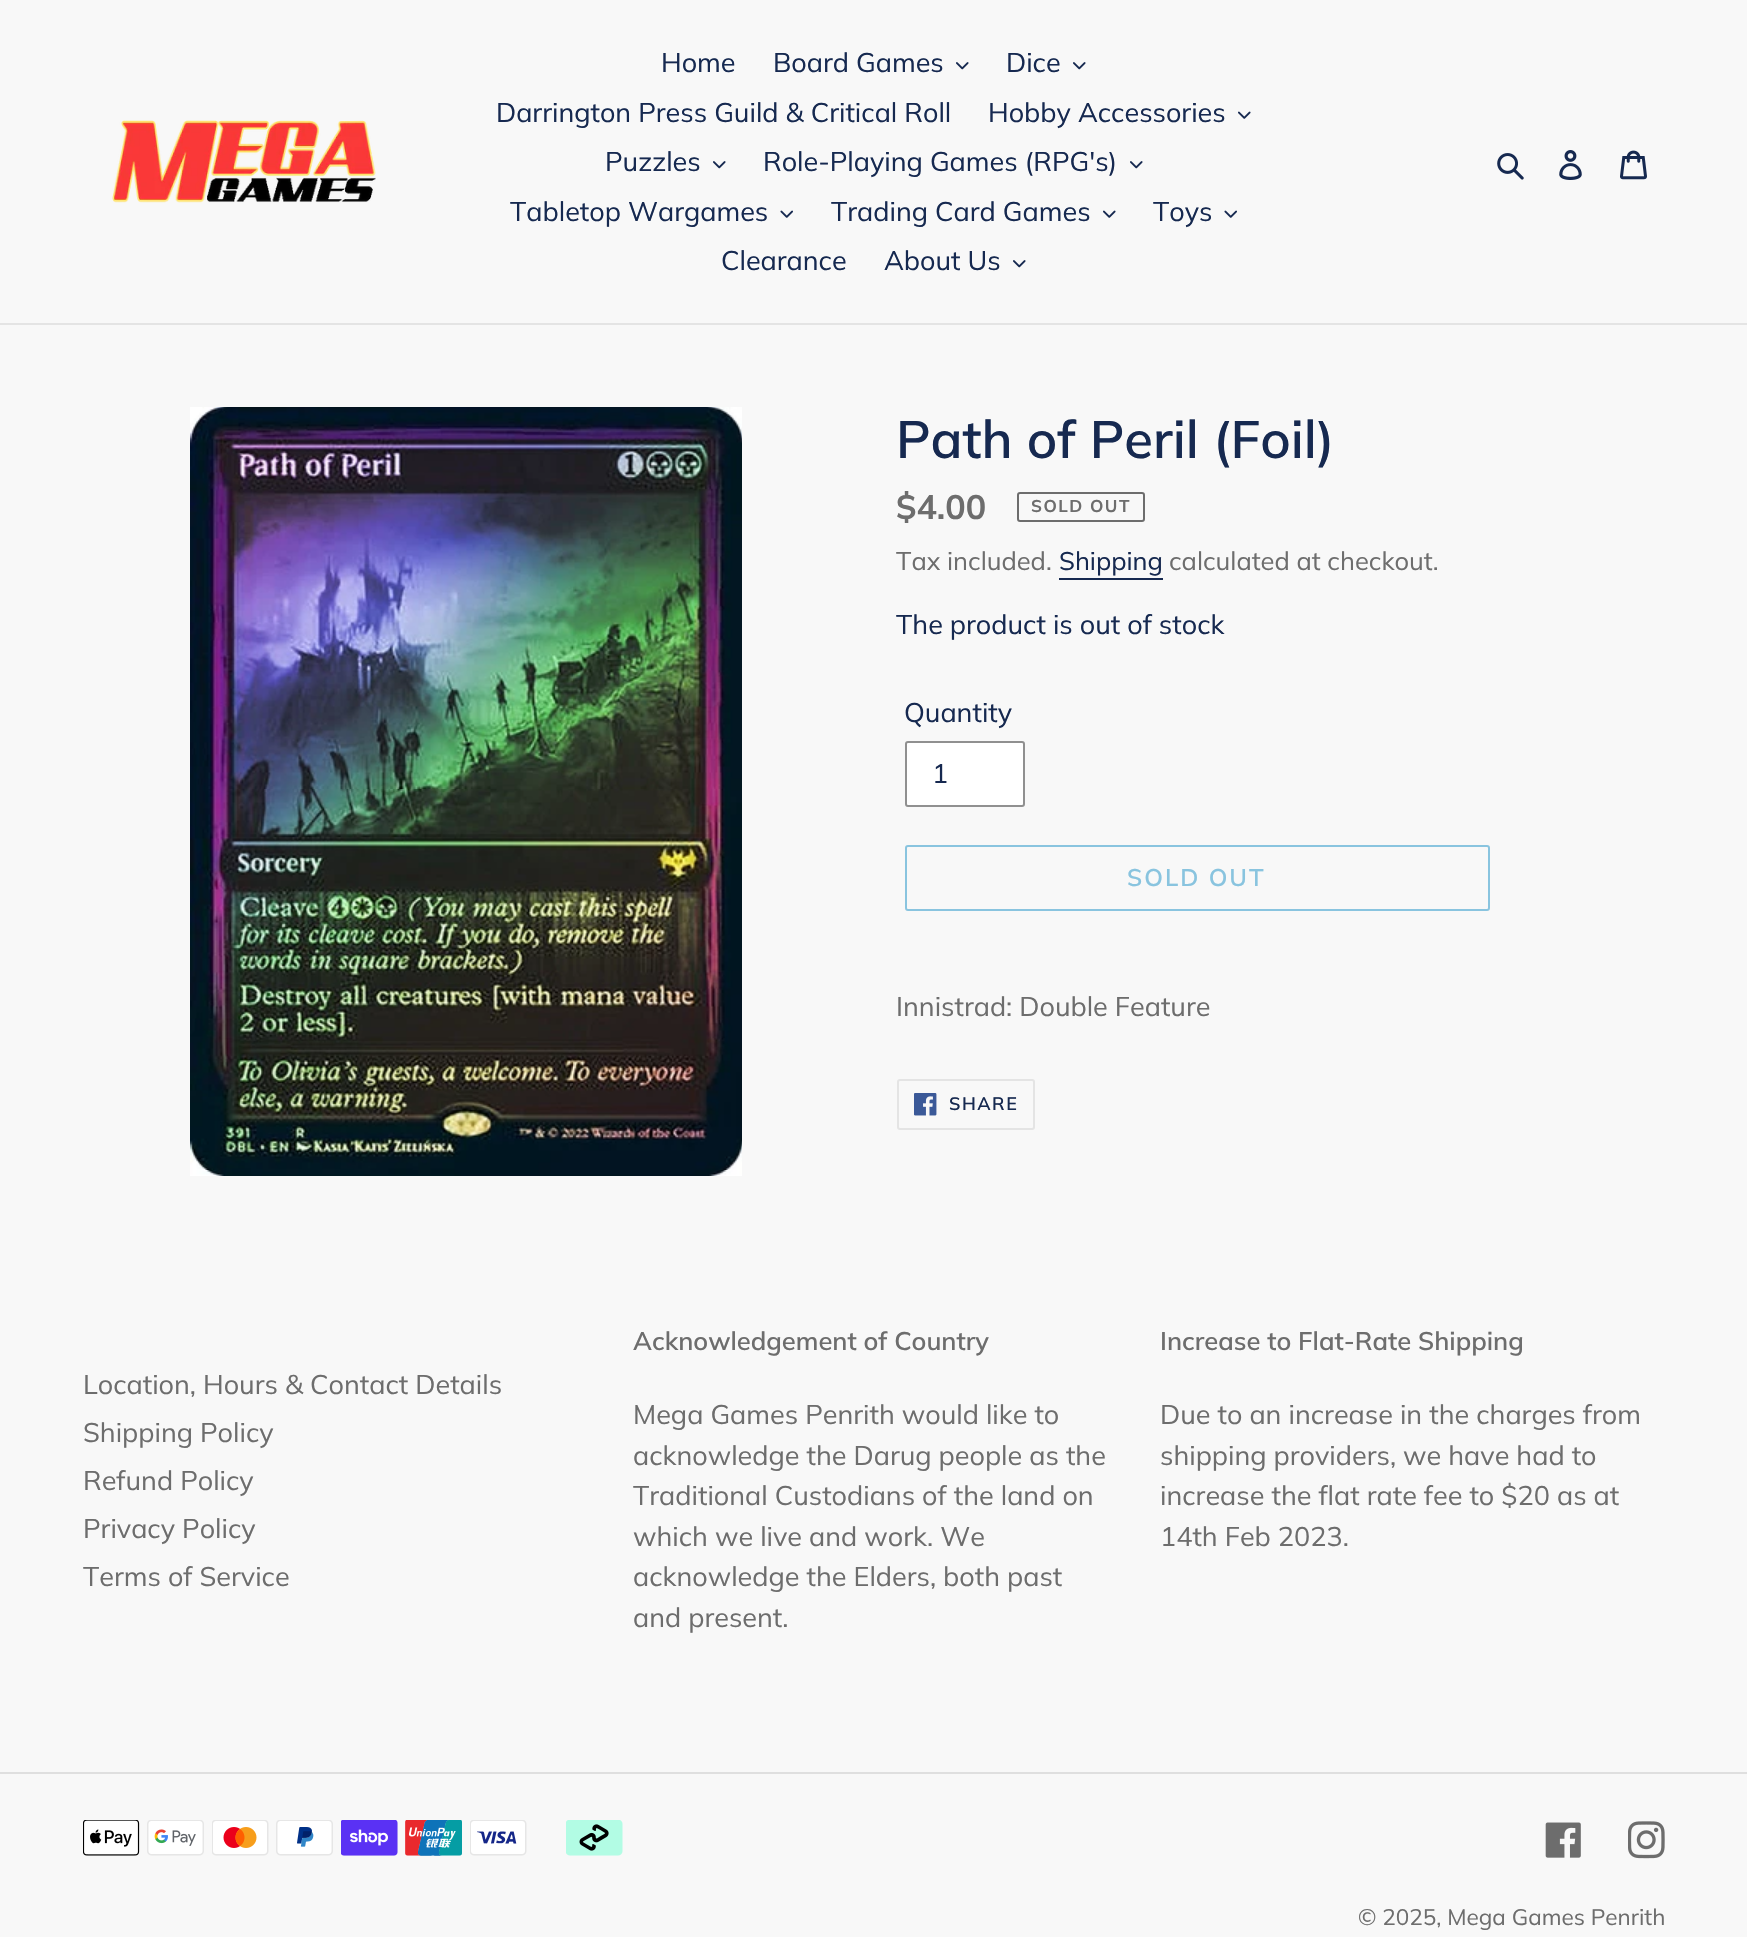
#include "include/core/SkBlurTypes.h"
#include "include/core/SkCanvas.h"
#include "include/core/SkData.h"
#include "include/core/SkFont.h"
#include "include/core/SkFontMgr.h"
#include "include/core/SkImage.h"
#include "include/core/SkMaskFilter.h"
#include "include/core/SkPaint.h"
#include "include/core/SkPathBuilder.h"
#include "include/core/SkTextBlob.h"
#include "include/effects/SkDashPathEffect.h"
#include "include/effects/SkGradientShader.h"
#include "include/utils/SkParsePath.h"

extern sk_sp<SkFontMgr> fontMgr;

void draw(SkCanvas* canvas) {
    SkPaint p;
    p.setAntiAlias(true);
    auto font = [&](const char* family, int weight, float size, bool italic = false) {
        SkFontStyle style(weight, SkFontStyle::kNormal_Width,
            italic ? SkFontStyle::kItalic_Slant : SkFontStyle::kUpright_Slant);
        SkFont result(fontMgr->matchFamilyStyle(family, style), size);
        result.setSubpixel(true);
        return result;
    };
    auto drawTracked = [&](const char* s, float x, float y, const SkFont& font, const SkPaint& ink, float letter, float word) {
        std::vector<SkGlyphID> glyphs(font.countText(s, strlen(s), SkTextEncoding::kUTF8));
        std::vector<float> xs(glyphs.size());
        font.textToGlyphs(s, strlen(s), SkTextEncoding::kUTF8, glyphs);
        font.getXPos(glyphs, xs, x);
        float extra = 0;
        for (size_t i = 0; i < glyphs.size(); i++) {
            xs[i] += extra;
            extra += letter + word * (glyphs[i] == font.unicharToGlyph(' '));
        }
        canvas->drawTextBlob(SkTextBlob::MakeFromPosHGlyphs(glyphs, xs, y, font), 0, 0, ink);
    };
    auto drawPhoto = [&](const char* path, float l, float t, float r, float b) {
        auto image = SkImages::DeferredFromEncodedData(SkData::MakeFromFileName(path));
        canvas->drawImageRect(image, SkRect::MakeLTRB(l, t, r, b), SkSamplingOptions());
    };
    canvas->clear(0xFFF8F8F8);
    p.setColor(0xFFE4E4E4);
    canvas->drawRect(SkRect::MakeLTRB(0, 323, 1747, 325), p);
    drawPhoto("media/1.png", 112, 120, 376, 203);
    auto font1 = font("Muli", 400, 27);
    p.setColor(0xFF162950);
    canvas->drawString("Home", 661, 72, font1, p);
    canvas->drawString("Board Games", 773, 72, font1, p);
    drawPhoto("media/2.png", 956, 62, 969, 70);
    canvas->drawString("Dice", 1006, 72, font1, p);
    drawPhoto("media/2.png", 1073, 62, 1086, 70);
    canvas->drawString("Darrington Press Guild & Critical Roll", 496, 122, font1, p);
    canvas->drawString("Hobby Accessories", 988, 122, font1, p);
    drawPhoto("media/3.png", 1238, 111, 1251, 119);
    canvas->drawString("Puzzles", 605, 171, font1, p);
    drawPhoto("media/2.png", 713, 161, 726, 169);
    canvas->drawString("Role-Playing Games (RPG's)", 763, 171, font1, p);
    drawPhoto("media/2.png", 1130, 161, 1143, 169);
    canvas->drawString("Tabletop Wargames", 510, 221, font1, p);
    drawPhoto("media/4.png", 780, 210, 793, 218);
    canvas->drawString("Trading Card Games", 831, 221, font1, p);
    drawPhoto("media/3.png", 1103, 210, 1116, 218);
    canvas->drawString("Toys", 1153, 221, font1, p);
    drawPhoto("media/4.png", 1224, 210, 1237, 218);
    canvas->drawString("Clearance", 721, 270, font1, p);
    canvas->drawString("About Us", 884, 270, font1, p);
    drawPhoto("media/2.png", 1013, 260, 1026, 268);
    drawPhoto("media/5.png", 1497, 153, 1524, 180);
    drawPhoto("media/6.png", 1559, 150, 1582, 180);
    drawPhoto("media/7.png", 1620, 150, 1647, 180);
    drawPhoto("media/8.png", 190, 407, 742, 1176);
    auto font2 = font("Muli", 600, 52.5f);
    canvas->drawString("Path of Peril (Foil)", 896, 458, font2, p);
    auto font3 = font("Muli", 700, 34);
    p.setColor(0xFF6D6D6D);
    canvas->drawString("$4.00", 896, 519, font3, p);
    p.setStyle(SkPaint::kStroke_Style);
    p.setStrokeWidth(2);
    canvas->drawRoundRect(SkRect::MakeLTRB(1018, 493, 1144, 521), 2, 2, p);
    auto font4 = font("Muli", 700, 17);
    p.setStyle(SkPaint::kFill_Style);
    drawTracked("SOLD OUT", 1031, 512, font4, p, 1.5f, 0);
    auto font5 = font("Muli", 400, 25.5f);
    canvas->drawString("Tax included.", 896, 570, font5, p);
    p.setColor(0xFF162950);
    canvas->drawString("Shipping", 1059, 570, font5, p);
    canvas->drawRect(SkRect::MakeLTRB(1059, 578, 1163, 580), p);
    p.setColor(0xFF6D6D6D);
    canvas->drawString("calculated at checkout.", 1169, 570, font5, p);
    p.setColor(0xFF162950);
    canvas->drawString("The product is out of stock", 896, 634, font1, p);
    canvas->drawString("Quantity", 904, 722, font1, p);
    p.setColor(0xFFFFFFFF);
    canvas->drawRoundRect(SkRect::MakeLTRB(906, 742, 1024, 806), 2, 2, p);
    p.setStyle(SkPaint::kStroke_Style);
    p.setColor(0xFF909090);
    canvas->drawRoundRect(SkRect::MakeLTRB(906, 742, 1024, 806), 2, 2, p);
    p.setStyle(SkPaint::kFill_Style);
    p.setColor(0xFF162950);
    canvas->drawString("1", 932, 783, font1, p);
    p.setStyle(SkPaint::kStroke_Style);
    p.setColor(0xFF89C4DF);
    canvas->drawRoundRect(SkRect::MakeLTRB(906, 846, 1489, 910), 2, 2, p);
    auto font6 = font("Muli", 600, 24);
    p.setStyle(SkPaint::kFill_Style);
    drawTracked("SOLD OUT", 1127, 886, font6, p, 2, 0);
    p.setColor(0xFF6D6D6D);
    canvas->drawString("Innistrad: Double Feature", 896, 1016, font1, p);
    p.setStyle(SkPaint::kStroke_Style);
    p.setColor(0xFFE4E4E4);
    canvas->drawRoundRect(SkRect::MakeLTRB(898, 1080, 1034, 1129), 2, 2, p);
    drawPhoto("media/9.png", 914, 1093, 937, 1116);
    auto font7 = font("Muli", 600, 18);
    p.setStyle(SkPaint::kFill_Style);
    p.setColor(0xFF162950);
    drawTracked("SHARE", 949, 1110, font7, p, 1.5f, 0);
    p.setColor(0xFF6D6D6D);
    {
        const struct { const char* s; float x, y; } items[] = {
            {"Location, Hours & Contact Details", 83, 1394},
            {"Shipping Policy", 83, 1442},
            {"Refund Policy", 83, 1490},
            {"Privacy Policy", 83, 1538},
            {"Terms of Service", 83, 1586},
        };
        for (auto [s, x, y] : items) {
            canvas->drawString(s, x, y, font1, p);
        }
    }
    auto font8 = font("Muli", 600, 25.5f);
    canvas->drawString("Acknowledgement of Country", 633, 1350, font8, p);
    {
        const struct { const char* s; float x, y; } items[] = {
            {"Mega Games Penrith would like to", 633, 1424},
            {"acknowledge the Darug people as the", 633, 1465},
            {"Traditional Custodians of the land on", 633, 1505},
            {"which we live and work. We", 633, 1546},
            {"acknowledge the Elders, both past", 633, 1586},
            {"and present.", 633, 1627},
        };
        for (auto [s, x, y] : items) {
            canvas->drawString(s, x, y, font1, p);
        }
    }
    canvas->drawString("Increase to Flat-Rate Shipping", 1160, 1350, font8, p);
    {
        const struct { const char* s; float x, y; } items[] = {
            {"Due to an increase in the charges from", 1160, 1424},
            {"shipping providers, we have had to", 1160, 1465},
            {"increase the flat rate fee to $20 as at", 1160, 1505},
            {"14th Feb 2023.", 1160, 1546},
        };
        for (auto [s, x, y] : items) {
            canvas->drawString(s, x, y, font1, p);
        }
    }
    p.setColor(0xFFDFDFDF);
    canvas->drawRect(SkRect::MakeLTRB(0, 1772, 1747, 1774), p);
    drawPhoto("media/10.png", 83, 1820, 140, 1856);
    drawPhoto("media/11.png", 147, 1820, 204, 1856);
    drawPhoto("media/12.png", 212, 1820, 269, 1856);
    drawPhoto("media/13.png", 276, 1820, 333, 1856);
    drawPhoto("media/14.png", 341, 1820, 398, 1856);
    drawPhoto("media/15.png", 405, 1820, 462, 1856);
    drawPhoto("media/16.png", 470, 1820, 527, 1856);
    drawPhoto("media/17.png", 566, 1820, 623, 1856);
    drawPhoto("media/18.png", 1545, 1822, 1581, 1858);
    drawPhoto("media/19.png", 1628, 1821, 1665, 1859);
    auto font9 = font("Muli", 400, 22.5f);
    p.setColor(0xFF6D6D6D);
    canvas->drawString("© 2025, Mega Games Penrith", 1358, 1925, font9, p);
}
